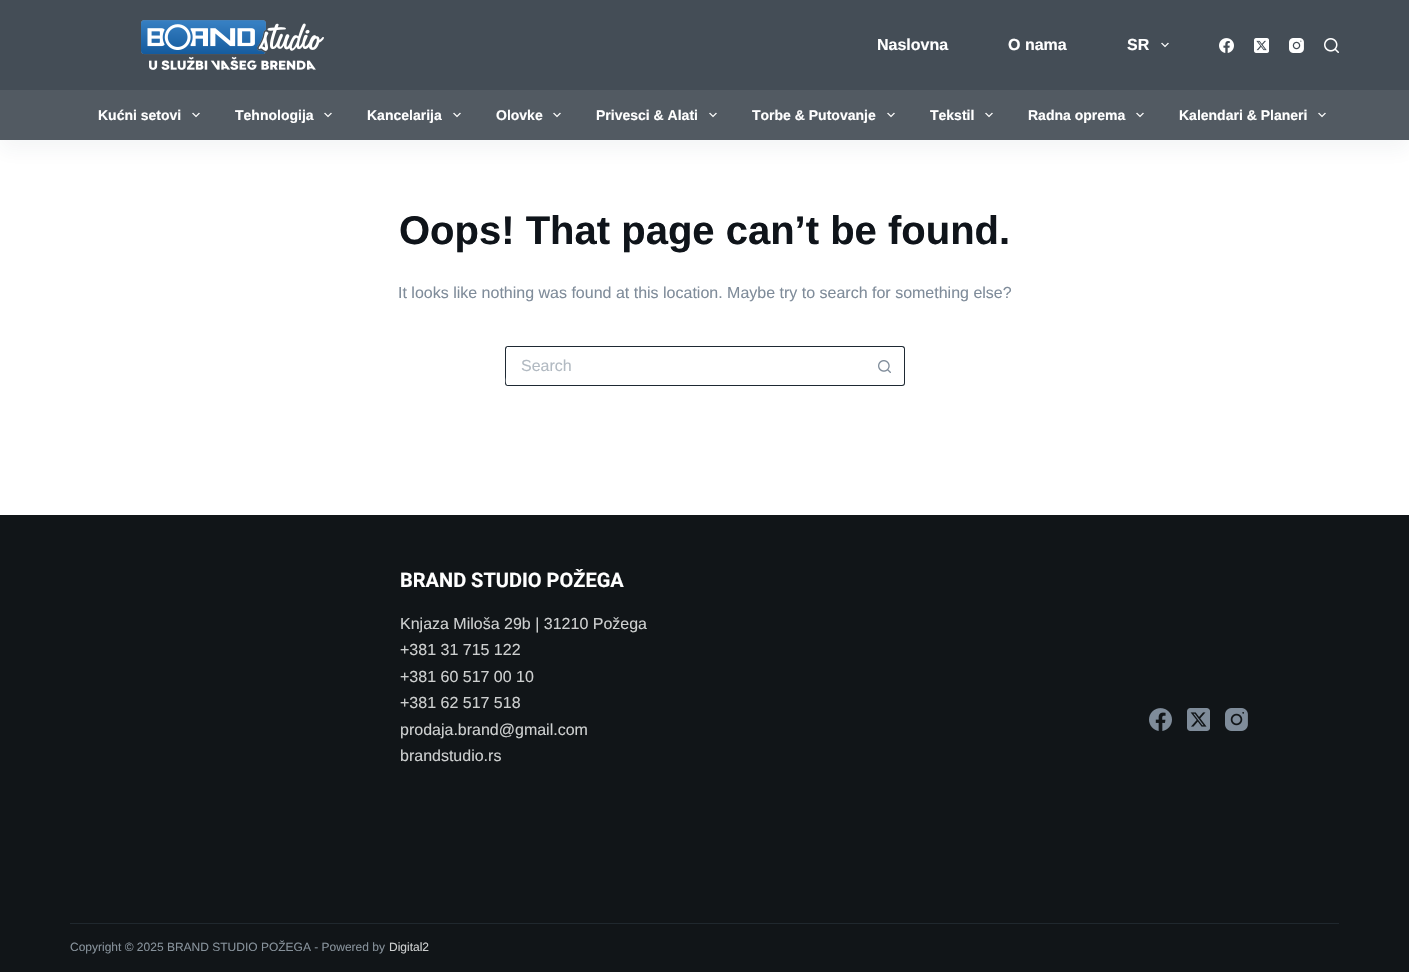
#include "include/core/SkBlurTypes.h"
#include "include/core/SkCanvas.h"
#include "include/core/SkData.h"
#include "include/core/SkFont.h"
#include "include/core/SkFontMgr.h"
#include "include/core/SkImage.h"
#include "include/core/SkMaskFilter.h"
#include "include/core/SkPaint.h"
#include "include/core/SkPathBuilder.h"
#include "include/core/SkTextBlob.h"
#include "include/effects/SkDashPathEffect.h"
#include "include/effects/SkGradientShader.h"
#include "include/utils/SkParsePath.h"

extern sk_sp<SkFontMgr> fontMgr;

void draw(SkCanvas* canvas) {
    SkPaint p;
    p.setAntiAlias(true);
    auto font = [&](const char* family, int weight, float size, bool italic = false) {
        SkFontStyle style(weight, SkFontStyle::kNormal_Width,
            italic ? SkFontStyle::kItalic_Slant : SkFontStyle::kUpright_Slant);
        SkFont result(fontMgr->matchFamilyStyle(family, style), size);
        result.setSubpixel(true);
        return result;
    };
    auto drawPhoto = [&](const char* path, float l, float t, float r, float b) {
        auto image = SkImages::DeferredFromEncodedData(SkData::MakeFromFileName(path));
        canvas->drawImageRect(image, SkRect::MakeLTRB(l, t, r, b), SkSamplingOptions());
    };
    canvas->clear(0xFFFFFFFF);
    p.setColor(0x0D2B3D4F);
    p.setMaskFilter(SkMaskFilter::MakeBlur(kNormal_SkBlurStyle, 10));
    canvas->drawRect(SkRect::MakeLTRB(0, 100, 1409, 150), p);
    p.setMaskFilter(nullptr);
    p.setColor(0xFF444D56);
    canvas->drawRect(SkRect::MakeLTRB(0, 0, 1409, 90), p);
    drawPhoto("media/1.png", 141, 20, 324, 70);
    auto font1 = font("Liberation Sans", 700, 16);
    p.setColor(0xFFFFFFFF);
    {
        const struct { const char* s; float x, y; } items[] = {
            {"Naslovna", 877, 50},
            {"O nama", 1008, 50},
            {"SR", 1127, 50},
        };
        for (auto [s, x, y] : items) {
            canvas->drawString(s, x, y, font1, p);
        }
    }
    drawPhoto("media/2.png", 1161, 42, 1169, 48);
    drawPhoto("media/3.png", 1219, 38, 1234, 53);
    drawPhoto("media/4.png", 1254, 38, 1269, 53);
    drawPhoto("media/5.png", 1289, 38, 1304, 53);
    drawPhoto("media/6.png", 1324, 38, 1339, 53);
    p.setColor(0xFF525A62);
    canvas->drawRect(SkRect::MakeLTRB(0, 90, 1409, 140), p);
    auto font2 = font("Liberation Sans", 700, 14);
    p.setColor(0xFFFFFFFF);
    canvas->drawString("Kućni setovi", 98, 120, font2, p);
    drawPhoto("media/7.png", 192, 112, 200, 118);
    canvas->drawString("Tehnologija", 235, 120, font2, p);
    drawPhoto("media/7.png", 324, 112, 332, 118);
    canvas->drawString("Kancelarija", 367, 120, font2, p);
    drawPhoto("media/7.png", 453, 112, 461, 118);
    canvas->drawString("Olovke", 496, 120, font2, p);
    drawPhoto("media/7.png", 553, 112, 561, 118);
    canvas->drawString("Privesci & Alati", 596, 120, font2, p);
    drawPhoto("media/7.png", 709, 112, 717, 118);
    canvas->drawString("Torbe & Putovanje", 752, 120, font2, p);
    drawPhoto("media/7.png", 887, 112, 895, 118);
    canvas->drawString("Tekstil", 930, 120, font2, p);
    drawPhoto("media/7.png", 985, 112, 993, 118);
    canvas->drawString("Radna oprema", 1028, 120, font2, p);
    drawPhoto("media/7.png", 1136, 112, 1144, 118);
    canvas->drawString("Kalendari & Planeri", 1179, 120, font2, p);
    drawPhoto("media/7.png", 1318, 112, 1326, 118);
    auto font3 = font("Liberation Sans", 700, 40);
    p.setColor(0xFF0F141A);
    canvas->drawString("Oops! That page can’t be found.", 399, 244, font3, p);
    auto font4 = font("Liberation Sans", 400, 16);
    p.setColor(0xFF7F8C9A);
    canvas->drawString("It looks like nothing was found at this location. Maybe try to search for something else?", 398, 298, font4, p);
    p.setColor(0xFF1E2933);
    canvas->drawPath(SkPathBuilder(SkPathFillType::kEvenOdd).moveTo(508, 346).lineTo(865, 346).lineTo(865, 386).lineTo(508, 386).cubicTo(506, 386, 505, 385, 505, 383).lineTo(505, 349).cubicTo(505, 347, 506, 346, 508, 346).close().moveTo(508, 347).lineTo(865, 347).lineTo(865, 385).lineTo(507, 385).cubicTo(505, 383, 506, 378, 506, 377).lineTo(506, 349).lineTo(507, 347).close().detach(), p);
    p.setColor(0xFFB2BAC2);
    canvas->drawString("Search", 521, 371, font4, p);
    p.setColor(0xFF1E2933);
    canvas->drawPath(SkPathBuilder(SkPathFillType::kEvenOdd).moveTo(865, 346).lineTo(902, 346).cubicTo(904, 346, 905, 347, 905, 349).lineTo(905, 383).cubicTo(905, 385, 904, 386, 902, 386).lineTo(865, 386).close().moveTo(865, 347).lineTo(902, 347).cubicTo(903, 347, 904, 348, 904, 349).lineTo(904, 383).cubicTo(904, 384, 903, 385, 902, 385).lineTo(865, 385).close().detach(), p);
    drawPhoto("media/8.png", 878, 360, 891, 373);
    p.setColor(0xFF111518);
    canvas->drawRect(SkRect::MakeLTRB(0, 515, 1409, 972), p);
    auto font5 = font("Roboto", 700, 20);
    p.setColor(0xFFFFFFFF);
    canvas->drawString("BRAND STUDIO POŽEGA", 400, 587, font5, p);
    p.setColor(0xFFCDCFCF);
    {
        const struct { const char* s; float x, y; } items[] = {
            {"Knjaza Miloša 29b | 31210 Požega", 400, 629},
            {"+381 31 715 122", 400, 655},
            {"+381 60 517 00 10", 400, 682},
            {"+381 62 517 518", 400, 708},
            {"prodaja.brand@gmail.com", 400, 735},
            {"brandstudio.rs", 400, 761},
        };
        for (auto [s, x, y] : items) {
            canvas->drawString(s, x, y, font4, p);
        }
    }
    drawPhoto("media/9.png", 1149, 708, 1172, 731);
    drawPhoto("media/10.png", 1187, 708, 1210, 731);
    drawPhoto("media/11.png", 1225, 708, 1248, 731);
    p.setColor(0xFF20282E);
    canvas->drawRect(SkRect::MakeLTRB(70, 923, 1339, 924), p);
    auto font6 = font("Liberation Sans", 400, 12);
    p.setColor(0xFF86919A);
    canvas->drawString("Copyright © 2025 BRAND STUDIO POŽEGA - Powered by", 70, 951, font6, p);
    p.setColor(0xFFCDCFCF);
    canvas->drawString("Digital2", 389, 951, font6, p);
}
